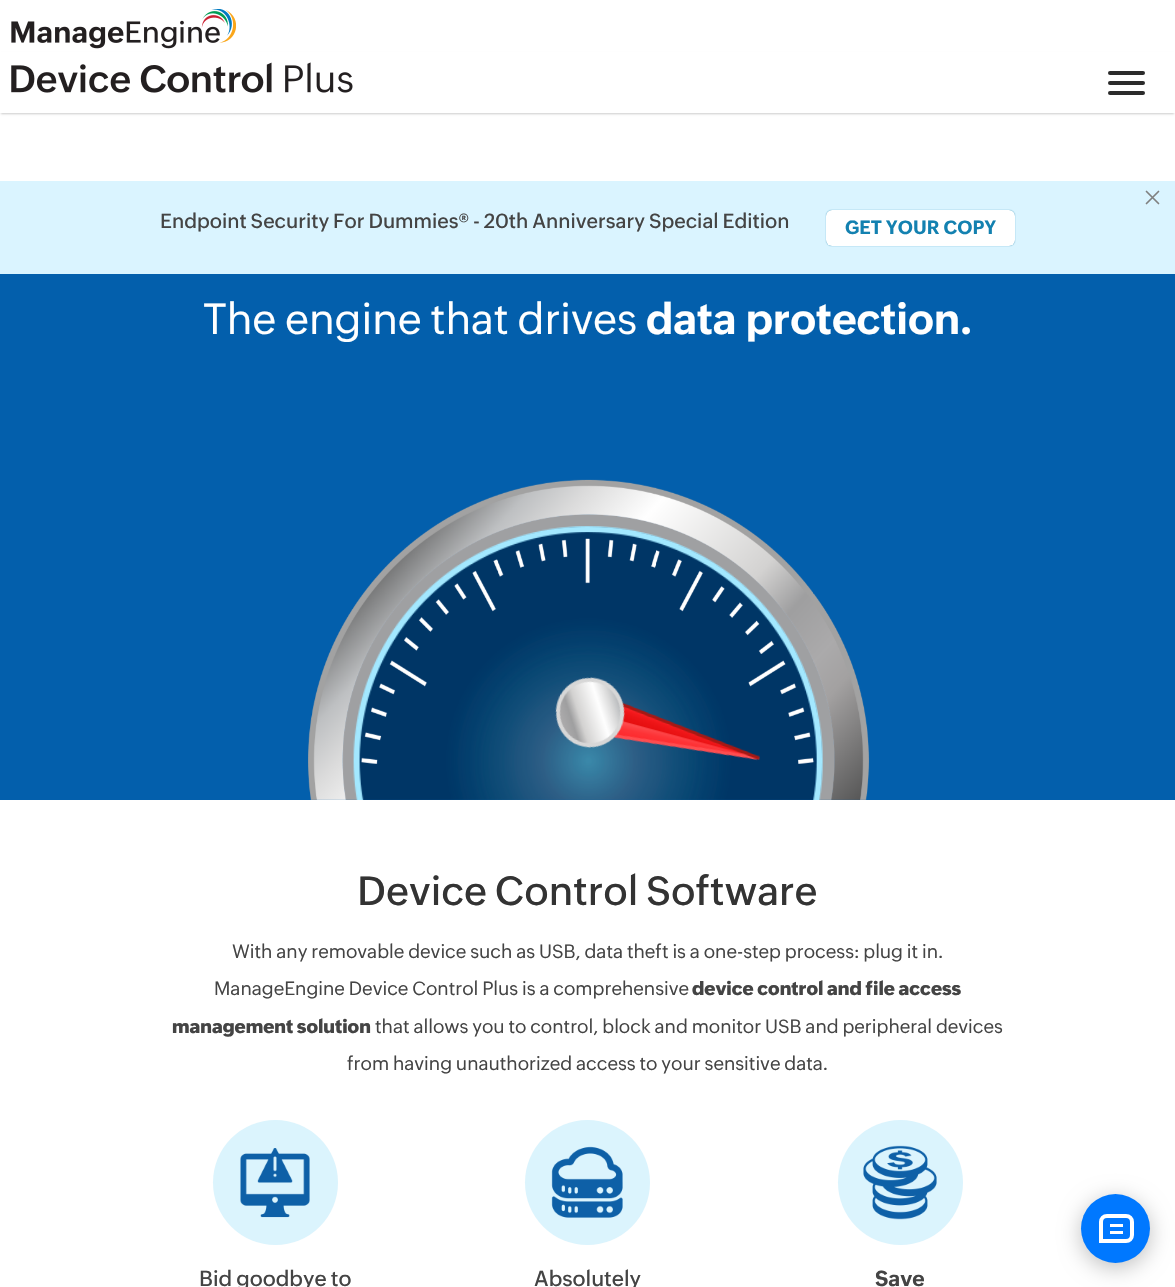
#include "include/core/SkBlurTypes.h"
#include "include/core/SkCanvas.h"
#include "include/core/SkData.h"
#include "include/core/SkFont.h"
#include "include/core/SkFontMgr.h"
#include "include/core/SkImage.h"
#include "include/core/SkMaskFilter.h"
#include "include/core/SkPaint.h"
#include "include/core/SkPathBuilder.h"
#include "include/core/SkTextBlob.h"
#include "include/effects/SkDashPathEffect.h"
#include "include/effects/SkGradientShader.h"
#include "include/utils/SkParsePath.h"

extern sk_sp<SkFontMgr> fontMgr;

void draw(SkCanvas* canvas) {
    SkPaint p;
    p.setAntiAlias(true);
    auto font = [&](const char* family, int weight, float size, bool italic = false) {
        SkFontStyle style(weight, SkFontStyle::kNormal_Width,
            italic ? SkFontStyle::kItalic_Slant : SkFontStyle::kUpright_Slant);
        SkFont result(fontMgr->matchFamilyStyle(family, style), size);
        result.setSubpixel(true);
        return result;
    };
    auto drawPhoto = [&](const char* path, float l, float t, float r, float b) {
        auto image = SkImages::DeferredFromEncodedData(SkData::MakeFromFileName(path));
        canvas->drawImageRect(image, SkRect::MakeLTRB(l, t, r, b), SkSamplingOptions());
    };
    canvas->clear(0xFFFFFFFF);
    drawPhoto("media/1.png", 11, 9, 236, 49);
    p.setColor(0xFFCCCCCC);
    p.setMaskFilter(SkMaskFilter::MakeBlur(kNormal_SkBlurStyle, 1));
    canvas->drawRect(SkRect::MakeLTRB(1, 54, 1174, 114), p);
    p.setMaskFilter(nullptr);
    p.setColor(0xFFFFFFFF);
    canvas->drawRect(SkRect::MakeLTRB(0, 52, 1175, 113), p);
    drawPhoto("media/2.png", 11, 62, 353, 93);
    p.setColor(0xFF2B2B2B);
    canvas->drawRoundRect(SkRect::MakeLTRB(1108, 71, 1145, 75), 2, 2, p);
    canvas->drawRoundRect(SkRect::MakeLTRB(1108, 81, 1145, 85), 2, 2, p);
    canvas->drawRoundRect(SkRect::MakeLTRB(1108, 91, 1145, 95), 2, 2, p);
    p.setColor(0xFFDAF4FF);
    canvas->drawRect(SkRect::MakeLTRB(0, 181, 1175, 274), p);
    p.setStyle(SkPaint::kStroke_Style);
    p.setStrokeWidth(1.7f);
    p.setStrokeCap(SkPaint::kRound_Cap);
    p.setColor(0xFF808080);
    canvas->drawPath(SkPathBuilder().moveTo(1146.5f, 191.5f).lineTo(1158.5f, 203.5f).moveTo(1146.5f, 203.5f).lineTo(1158.5f, 191.5f).detach(), p);
    auto font1 = font("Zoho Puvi", 500, 20);
    p.setStyle(SkPaint::kFill_Style);
    p.setColor(0xFF444444);
    canvas->drawString("Endpoint Security For Dummies® - 20th Anniversary Special Edition", 160, 228, font1, p);
    p.setColor(0xFF1381B0);
    p.setMaskFilter(SkMaskFilter::MakeBlur(kNormal_SkBlurStyle, 0.5f));
    canvas->drawRoundRect(SkRect::MakeLTRB(826, 210, 1015, 246), 6, 6, p);
    p.setMaskFilter(nullptr);
    p.setColor(0xFFFFFFFF);
    canvas->drawRoundRect(SkRect::MakeLTRB(826, 210, 1015, 246), 6, 6, p);
    auto font2 = font("Zoho Puvi", 700, 18.75f);
    p.setColor(0xFF1381B0);
    canvas->drawString("GET YOUR COPY", 845, 234, font2, p);
    p.setColor(0xFF035FAC);
    canvas->drawRect(SkRect::MakeLTRB(0, 274, 1175, 800), p);
    auto font3 = font("Zoho Puvi", 400, 42.5f);
    p.setColor(0xFFFFFFFF);
    canvas->drawString("The engine that drives", 203, 334, font3, p);
    auto font4 = font("Zoho Puvi", 700, 42.5f);
    canvas->drawString("data protection.", 646, 334, font4, p);
    drawPhoto("media/3.png", 308, 479, 870, 800);
    drawPhoto("media/4.png", 353, 526, 823, 800);
    drawPhoto("media/5.png", 555, 677, 760, 761);
    auto font5 = font("Zoho Puvi", 500, 40);
    p.setColor(0xFF333333);
    canvas->drawString("Device Control Software", 357, 905, font5, p);
    auto font6 = font("Zoho Puvi", 400, 18.75f);
    p.setColor(0xFF444444);
    canvas->drawString("With any removable device such as USB, data theft is a one-step process: plug it in.", 232, 958, font6, p);
    canvas->drawString("ManageEngine Device Control Plus is a comprehensive", 214, 995, font6, p);
    auto font7 = font("Zoho Puvi", 800, 18.75f);
    canvas->drawString("device control and file access", 692, 995, font7, p);
    canvas->drawString("management solution", 172, 1033, font7, p);
    canvas->drawString("that allows you to control, block and monitor USB and peripheral devices", 375, 1033, font6, p);
    canvas->drawString("from having unauthorized access to your sensitive data.", 347, 1070, font6, p);
    p.setColor(0xFFDBF4FD);
    canvas->drawCircle(275.5f, 1182.5f, 62.5f, p);
    drawPhoto("media/6.png", 240, 1148, 310, 1218);
    auto font8 = font("Zoho Puvi", 500, 21.25f);
    p.setColor(0xFF444444);
    canvas->drawString("Bid goodbye to", 199, 1286, font8, p);
    p.setColor(0xFFDBF4FD);
    canvas->drawCircle(587.5f, 1182.5f, 62.5f, p);
    drawPhoto("media/7.png", 551, 1146, 623, 1218);
    p.setColor(0xFF444444);
    canvas->drawString("Absolutely", 534, 1286, font8, p);
    p.setColor(0xFFDBF4FD);
    canvas->drawCircle(900.5f, 1182.5f, 62.5f, p);
    drawPhoto("media/8.png", 863, 1145, 937, 1220);
    auto font9 = font("Zoho Puvi", 700, 21.25f);
    p.setColor(0xFF444444);
    canvas->drawString("Save", 875, 1286, font9, p);
    p.setColor(0x40000000);
    p.setMaskFilter(SkMaskFilter::MakeBlur(kNormal_SkBlurStyle, 11));
    canvas->drawRoundRect(SkRect::MakeLTRB(1081, 1199, 1150, 1268), 34.5f, 34.5f, p);
    p.setMaskFilter(nullptr);
    p.setColor(0xFF0078FF);
    canvas->drawCircle(1115.5f, 1228.5f, 34.5f, p);
    p.setStyle(SkPaint::kStroke_Style);
    p.setStrokeWidth(4);
    p.setStrokeCap(SkPaint::kButt_Cap);
    p.setColor(0xFFFFFFFF);
    canvas->drawPath(SkPathBuilder().moveTo(1107, 1216).lineTo(1126, 1216).cubicTo(1129.5f, 1216, 1132, 1218.5f, 1132, 1222).lineTo(1132, 1235).cubicTo(1132, 1238.5f, 1129.5f, 1241, 1126, 1241).lineTo(1101, 1241).lineTo(1101, 1222).cubicTo(1101, 1218.5f, 1103.5f, 1216, 1107, 1216).close().detach(), p);
    p.setStyle(SkPaint::kFill_Style);
    canvas->drawRect(SkRect::MakeLTRB(1110, 1224, 1123, 1227), p);
    canvas->drawRect(SkRect::MakeLTRB(1110, 1231, 1123, 1234), p);
}
